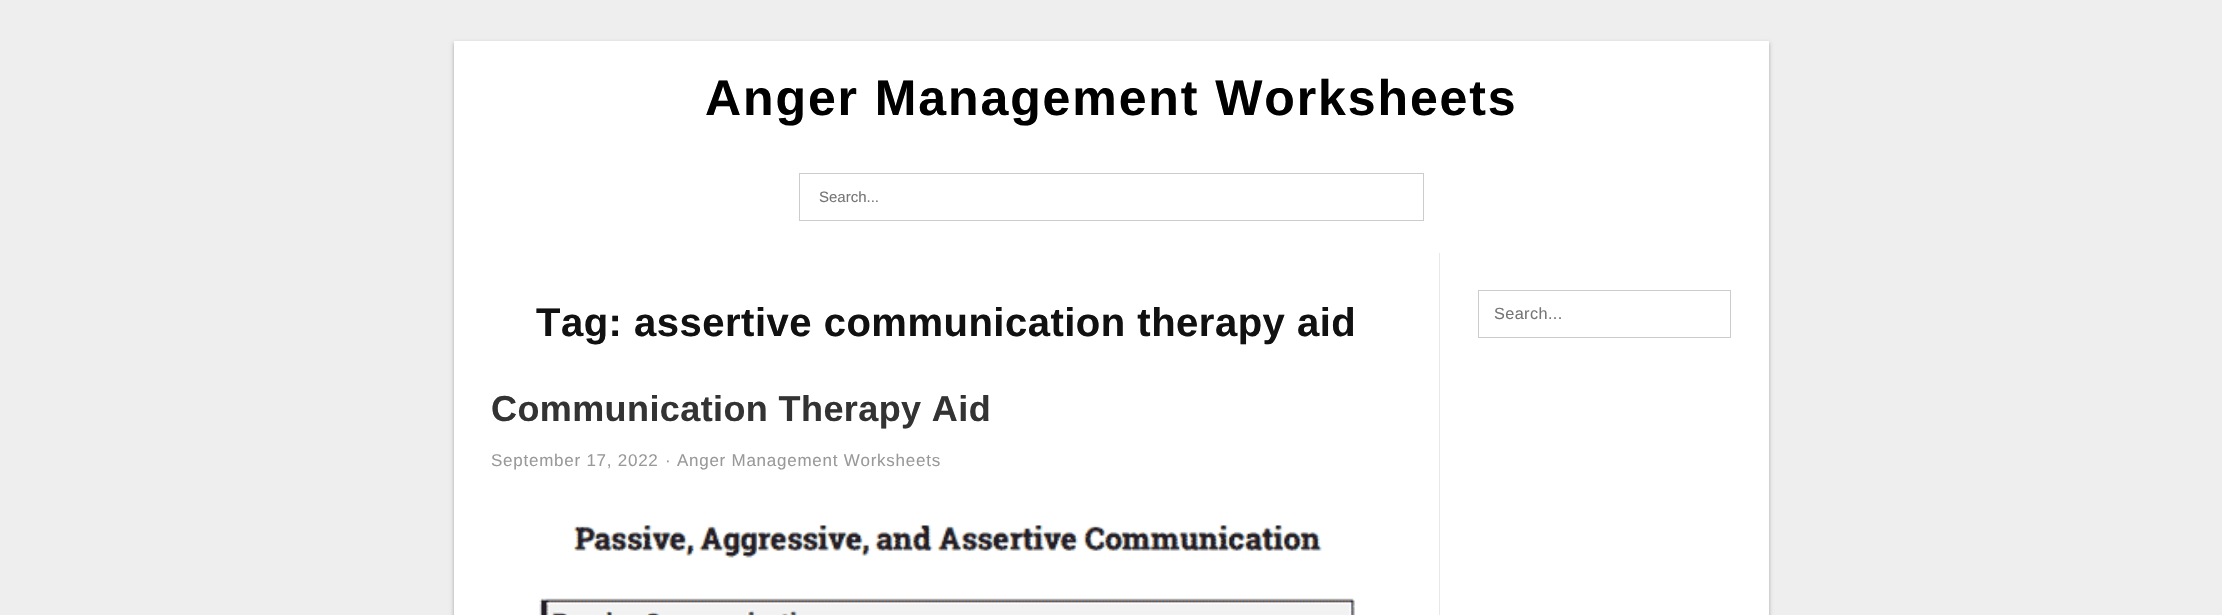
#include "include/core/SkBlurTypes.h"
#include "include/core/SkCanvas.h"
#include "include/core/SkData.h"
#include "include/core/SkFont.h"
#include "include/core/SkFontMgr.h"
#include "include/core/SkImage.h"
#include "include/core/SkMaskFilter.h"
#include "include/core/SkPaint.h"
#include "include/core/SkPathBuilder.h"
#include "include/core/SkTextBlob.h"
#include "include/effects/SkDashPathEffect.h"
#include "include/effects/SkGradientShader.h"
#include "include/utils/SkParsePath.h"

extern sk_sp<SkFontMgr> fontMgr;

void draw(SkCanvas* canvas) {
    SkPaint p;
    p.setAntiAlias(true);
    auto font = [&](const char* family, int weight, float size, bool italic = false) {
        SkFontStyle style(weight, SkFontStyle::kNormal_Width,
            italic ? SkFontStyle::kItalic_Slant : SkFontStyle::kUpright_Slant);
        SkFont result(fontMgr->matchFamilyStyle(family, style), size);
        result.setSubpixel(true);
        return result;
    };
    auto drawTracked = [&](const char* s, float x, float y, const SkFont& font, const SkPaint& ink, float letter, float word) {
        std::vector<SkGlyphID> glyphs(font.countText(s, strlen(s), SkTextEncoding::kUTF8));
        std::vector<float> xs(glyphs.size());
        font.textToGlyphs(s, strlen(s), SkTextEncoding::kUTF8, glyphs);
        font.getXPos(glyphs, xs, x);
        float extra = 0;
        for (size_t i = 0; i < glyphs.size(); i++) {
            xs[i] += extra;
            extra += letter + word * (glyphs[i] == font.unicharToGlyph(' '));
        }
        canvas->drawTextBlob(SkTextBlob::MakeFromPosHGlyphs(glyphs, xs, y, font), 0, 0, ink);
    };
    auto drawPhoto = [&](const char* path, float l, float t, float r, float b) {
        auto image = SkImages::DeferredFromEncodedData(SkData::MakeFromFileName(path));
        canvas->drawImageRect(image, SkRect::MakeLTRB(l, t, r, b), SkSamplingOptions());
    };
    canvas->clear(0xFFEEEEEE);
    p.setColor(0x4D000000);
    p.setMaskFilter(SkMaskFilter::MakeBlur(kNormal_SkBlurStyle, 2));
    canvas->drawRect(SkRect::MakeLTRB(454, 43, 1769, 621), p);
    p.setMaskFilter(nullptr);
    p.setColor(0xFFFFFFFF);
    canvas->drawRect(SkRect::MakeLTRB(454, 41, 1769, 615), p);
    auto font1 = font("Liberation Sans", 700, 50);
    p.setColor(0xFF000000);
    drawTracked("Anger Management Worksheets", 705, 115, font1, p, 1.9f, 0);
    p.setStyle(SkPaint::kStroke_Style);
    p.setStrokeWidth(1);
    p.setColor(0xFFCCCCCC);
    canvas->drawRect(SkRect::MakeLTRB(799.5f, 173.5f, 1423.5f, 220.5f), p);
    auto font2 = font("Liberation Sans", 400, 15);
    p.setStyle(SkPaint::kFill_Style);
    p.setColor(0xFF757575);
    canvas->drawString("Search...", 819, 202, font2, p);
    p.setColor(0xFFE8E8E8);
    canvas->drawRect(SkRect::MakeLTRB(1439, 253, 1440, 615), p);
    auto font3 = font("Liberation Sans", 700, 40);
    p.setColor(0xFF111111);
    drawTracked("Tag: assertive communication therapy aid", 536, 336, font3, p, 0.5f, 0);
    auto font4 = font("Liberation Sans", 700, 36);
    p.setColor(0xFF333333);
    drawTracked("Communication Therapy Aid", 491, 421, font4, p, 0.4f, 0);
    auto font5 = font("Liberation Sans", 400, 17);
    p.setColor(0xFF999999);
    drawTracked("September 17, 2022", 491, 466, font5, p, 0.75f, 0);
    drawTracked("· Anger Management Worksheets", 665, 466, font5, p, 0.75f, 0);
    drawPhoto("media/1.png", 539, 525, 1355, 615);
    p.setStyle(SkPaint::kStroke_Style);
    p.setColor(0xFFCCCCCC);
    canvas->drawRect(SkRect::MakeLTRB(1478.5f, 290.5f, 1730.5f, 337.5f), p);
    auto font6 = font("Liberation Sans", 400, 16.25f);
    p.setStyle(SkPaint::kFill_Style);
    p.setColor(0xFF757575);
    drawTracked("Search...", 1494, 319, font6, p, 0.4f, 0);
}
